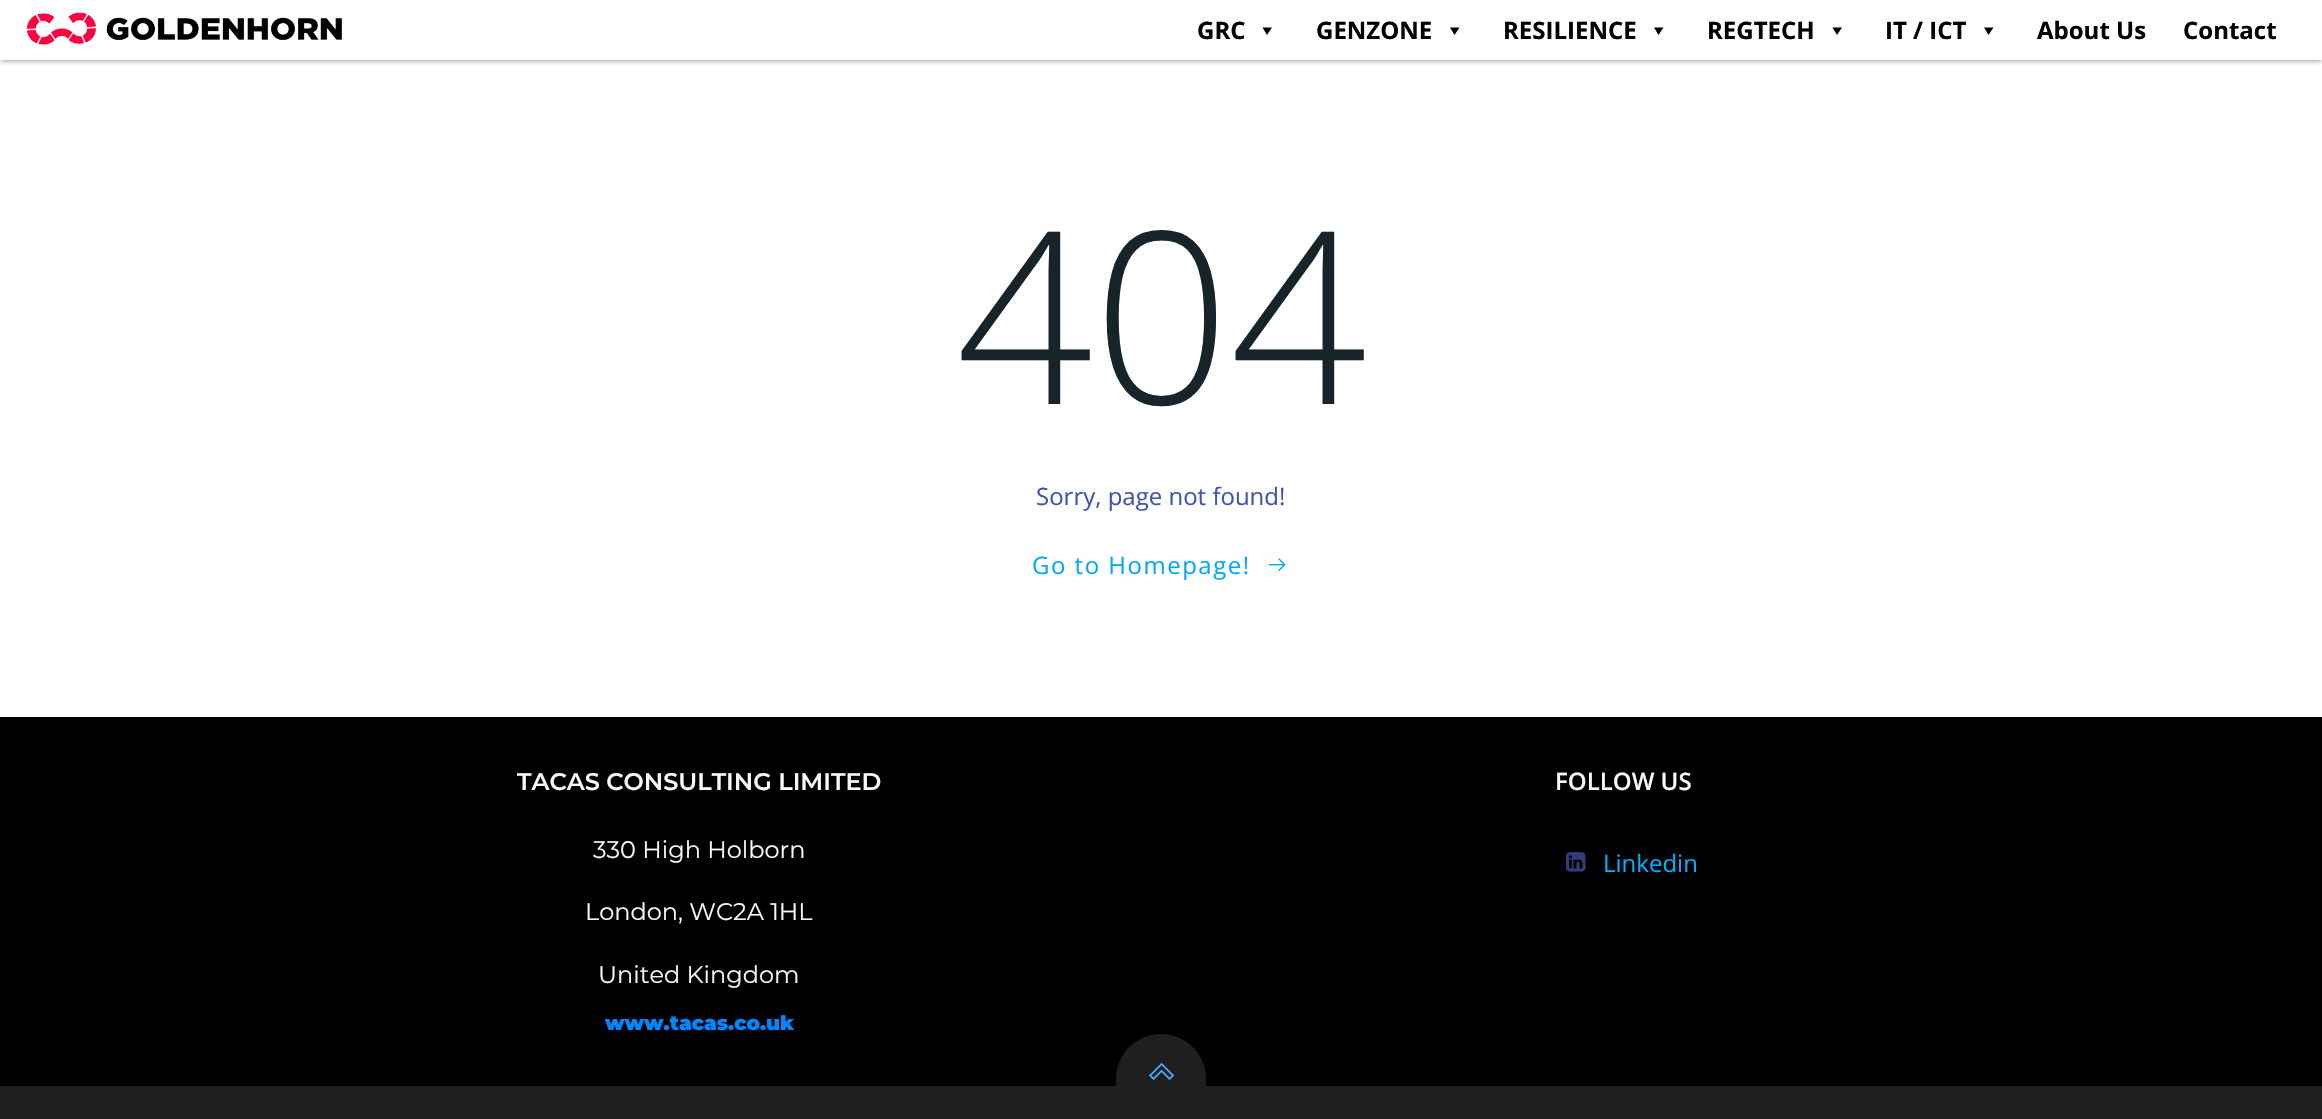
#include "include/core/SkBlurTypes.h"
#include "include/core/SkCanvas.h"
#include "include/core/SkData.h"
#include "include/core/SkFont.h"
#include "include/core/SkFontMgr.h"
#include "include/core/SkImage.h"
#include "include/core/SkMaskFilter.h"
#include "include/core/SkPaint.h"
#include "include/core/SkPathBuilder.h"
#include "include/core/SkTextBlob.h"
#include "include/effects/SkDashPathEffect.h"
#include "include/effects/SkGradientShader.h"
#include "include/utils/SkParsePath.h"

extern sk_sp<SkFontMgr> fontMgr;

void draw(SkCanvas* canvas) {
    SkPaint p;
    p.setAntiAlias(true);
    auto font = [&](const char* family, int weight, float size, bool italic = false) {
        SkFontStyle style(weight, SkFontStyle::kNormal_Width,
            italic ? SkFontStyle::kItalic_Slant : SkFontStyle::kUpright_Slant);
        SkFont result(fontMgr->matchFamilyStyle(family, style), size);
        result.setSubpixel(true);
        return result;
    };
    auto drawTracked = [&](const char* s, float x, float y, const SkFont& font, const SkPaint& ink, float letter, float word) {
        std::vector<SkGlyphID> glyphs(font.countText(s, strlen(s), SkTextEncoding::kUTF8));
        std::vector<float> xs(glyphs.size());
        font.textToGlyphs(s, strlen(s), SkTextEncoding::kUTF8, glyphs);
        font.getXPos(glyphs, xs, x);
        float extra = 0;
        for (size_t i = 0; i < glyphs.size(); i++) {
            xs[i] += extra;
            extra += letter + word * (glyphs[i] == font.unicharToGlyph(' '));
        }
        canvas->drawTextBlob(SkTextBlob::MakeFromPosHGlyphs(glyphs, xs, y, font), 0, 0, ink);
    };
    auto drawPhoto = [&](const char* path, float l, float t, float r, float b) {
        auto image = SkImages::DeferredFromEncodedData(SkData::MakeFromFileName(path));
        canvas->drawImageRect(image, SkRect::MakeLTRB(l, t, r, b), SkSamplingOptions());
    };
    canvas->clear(0xFFFFFFFF);
    canvas->save();
    canvas->clipRect(SkRect::MakeLTRB(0, 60, 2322, 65));
    p.setColor(0x80000000);
    p.setMaskFilter(SkMaskFilter::MakeBlur(kNormal_SkBlurStyle, 3));
    canvas->drawRect(SkRect::MakeLTRB(0, 0, 2322, 60), p);
    p.setMaskFilter(nullptr);
    canvas->restore();
    drawPhoto("media/1.png", 27, 12, 342, 45);
    auto font1 = font("Open Sans", 700, 24);
    p.setColor(0xFF000000);
    canvas->drawString("GRC", 1197, 39, font1, p);
    canvas->drawPath(SkPathBuilder().moveTo(1272, 27.5f).lineTo(1267, 35).lineTo(1262.5f, 27.5f).close().detach(), p);
    canvas->drawString("GENZONE", 1316, 39, font1, p);
    canvas->drawPath(SkPathBuilder().moveTo(1459.5f, 27.5f).lineTo(1454.5f, 35).lineTo(1450, 27.5f).close().detach(), p);
    canvas->drawString("RESILIENCE", 1503, 39, font1, p);
    canvas->drawPath(SkPathBuilder().moveTo(1663.5f, 27.5f).lineTo(1658.5f, 35).lineTo(1654, 27.5f).close().detach(), p);
    canvas->drawString("REGTECH", 1707, 39, font1, p);
    canvas->drawPath(SkPathBuilder().moveTo(1842, 27.5f).lineTo(1837, 35).lineTo(1832.5f, 27.5f).close().detach(), p);
    canvas->drawString("IT / ICT", 1885, 39, font1, p);
    canvas->drawPath(SkPathBuilder().moveTo(1993.5f, 27.5f).lineTo(1988.5f, 35).lineTo(1984, 27.5f).close().detach(), p);
    canvas->drawString("About Us", 2037, 39, font1, p);
    canvas->drawString("Contact", 2183, 39, font1, p);
    auto font2 = font("Open Sans", 300, 240);
    p.setColor(0xFF17252A);
    canvas->drawString("404", 956, 404, font2, p);
    auto font3 = font("Open Sans", 400, 24);
    p.setColor(0xFF4055A9);
    canvas->drawString("Sorry, page not found!", 1036, 505, font3, p);
    p.setColor(0xFF03A9F4);
    drawTracked("Go to Homepage!", 1032, 574, font3, p, 1.5f, 0);
    drawPhoto("media/2.png", 1268, 558, 1286, 572);
    p.setColor(0xFF000000);
    canvas->drawRect(SkRect::MakeLTRB(0, 717, 2322, 1086), p);
    auto font4 = font("Montserrat", 600, 24);
    p.setColor(0xFFF6F8FA);
    canvas->drawString("TACAS CONSULTING LIMITED", 517, 790, font4, p);
    auto font5 = font("Montserrat", 400, 24);
    p.setColor(0xFFFDF4F4);
    {
        const struct { const char* s; float x, y; } items[] = {
            {"330 High Holborn", 593, 858},
            {"London, WC2A 1HL", 585, 920},
            {"United Kingdom", 598, 983},
        };
        for (auto [s, x, y] : items) {
            canvas->drawString(s, x, y, font5, p);
        }
    }
    auto font6 = font("Montserrat", 900, 20);
    p.setColor(0xFF0086FF);
    canvas->drawString("www.tacas.co.uk", 605, 1030, font6, p);
    auto font7 = font("Open Sans", 600, 24);
    p.setColor(0xFFF6F8FA);
    canvas->drawString("FOLLOW US", 1555, 790, font7, p);
    drawPhoto("media/3.png", 1566, 852, 1586, 872);
    p.setColor(0xFF00B0FF);
    canvas->drawString("Linkedin", 1603, 872, font3, p);
    p.setColor(0xFF1F1F1F);
    canvas->drawPath(SkPathBuilder().moveTo(1161, 1034).cubicTo(1186, 1034, 1206, 1054, 1206, 1079).lineTo(1206, 1086).lineTo(1116, 1086).lineTo(1116, 1079).cubicTo(1116, 1054, 1136, 1034, 1161, 1034).close().detach(), p);
    drawPhoto("media/4.png", 1149, 1062, 1175, 1080);
    canvas->drawRect(SkRect::MakeLTRB(0, 1086, 2322, 1119), p);
}
